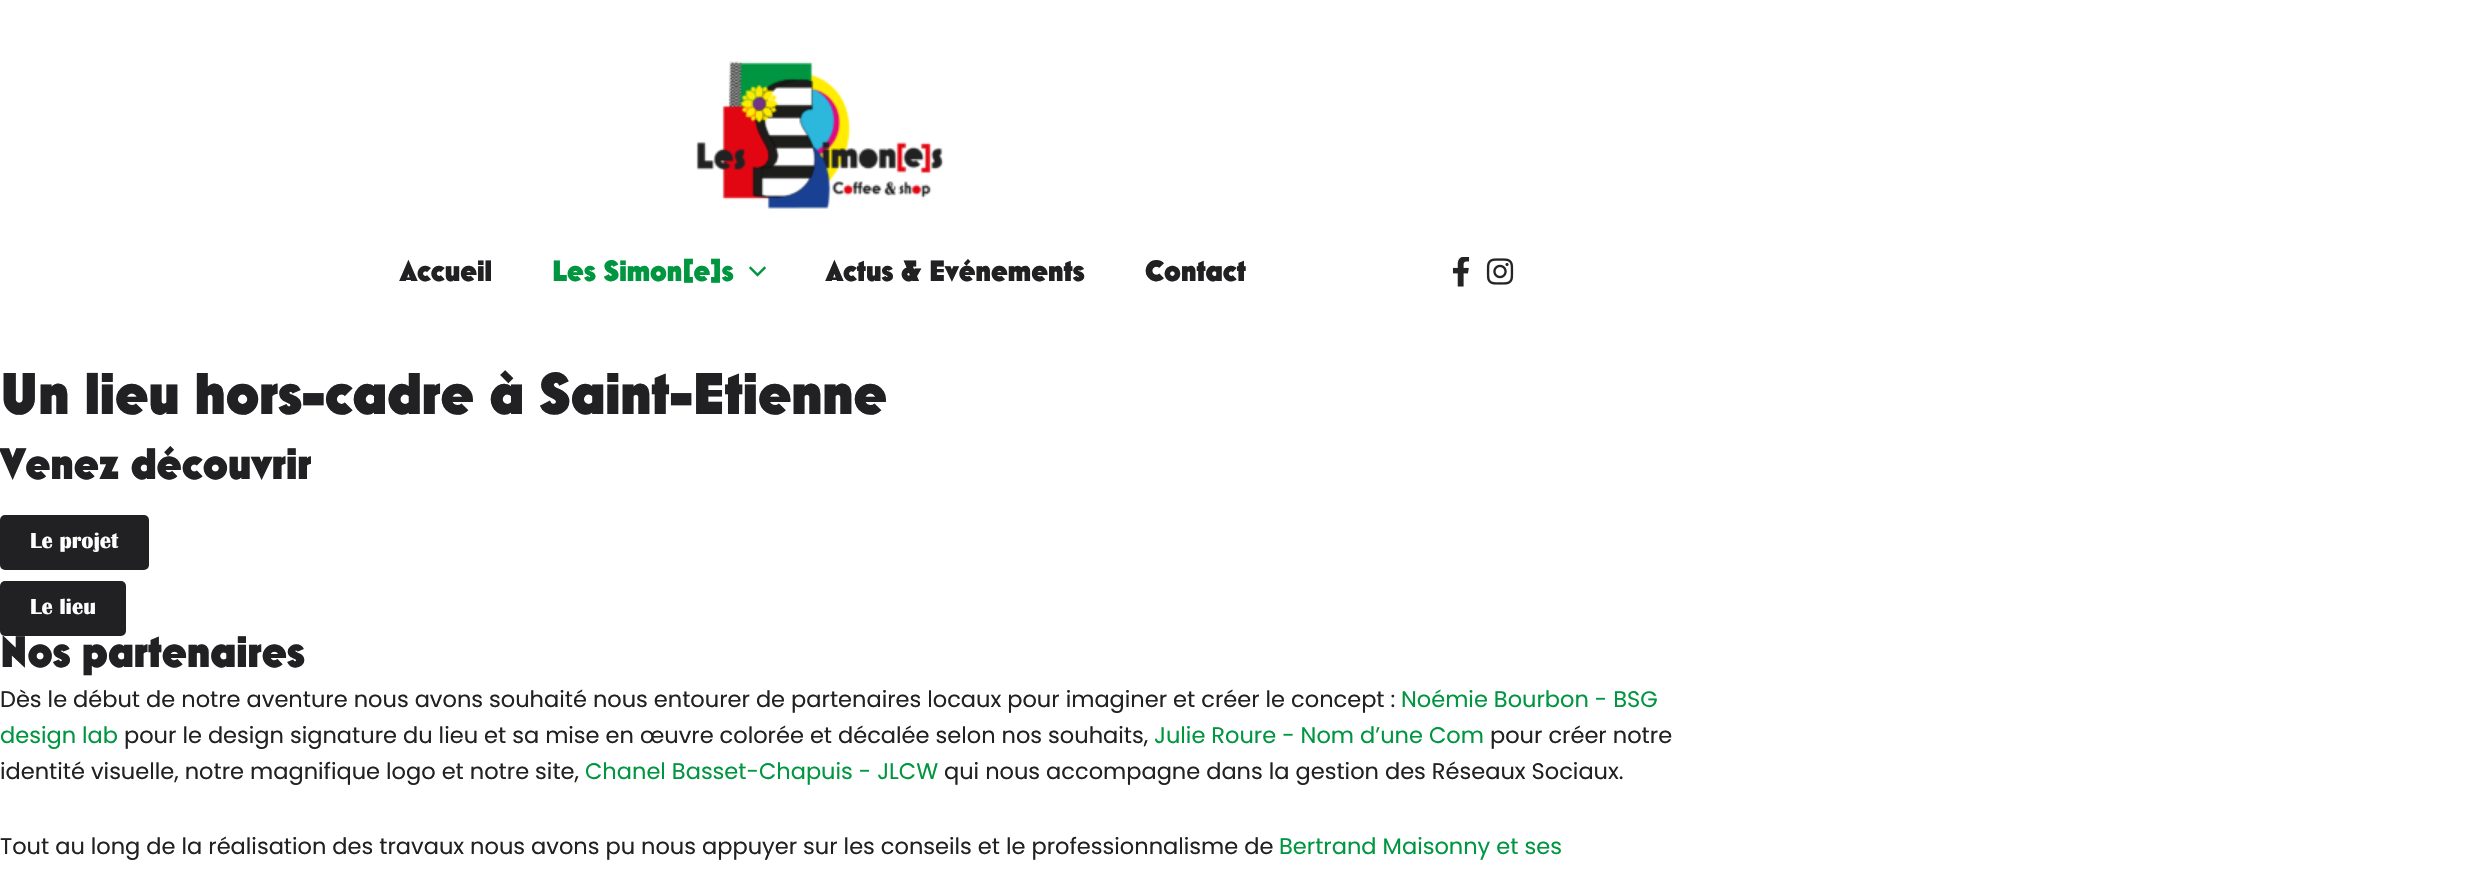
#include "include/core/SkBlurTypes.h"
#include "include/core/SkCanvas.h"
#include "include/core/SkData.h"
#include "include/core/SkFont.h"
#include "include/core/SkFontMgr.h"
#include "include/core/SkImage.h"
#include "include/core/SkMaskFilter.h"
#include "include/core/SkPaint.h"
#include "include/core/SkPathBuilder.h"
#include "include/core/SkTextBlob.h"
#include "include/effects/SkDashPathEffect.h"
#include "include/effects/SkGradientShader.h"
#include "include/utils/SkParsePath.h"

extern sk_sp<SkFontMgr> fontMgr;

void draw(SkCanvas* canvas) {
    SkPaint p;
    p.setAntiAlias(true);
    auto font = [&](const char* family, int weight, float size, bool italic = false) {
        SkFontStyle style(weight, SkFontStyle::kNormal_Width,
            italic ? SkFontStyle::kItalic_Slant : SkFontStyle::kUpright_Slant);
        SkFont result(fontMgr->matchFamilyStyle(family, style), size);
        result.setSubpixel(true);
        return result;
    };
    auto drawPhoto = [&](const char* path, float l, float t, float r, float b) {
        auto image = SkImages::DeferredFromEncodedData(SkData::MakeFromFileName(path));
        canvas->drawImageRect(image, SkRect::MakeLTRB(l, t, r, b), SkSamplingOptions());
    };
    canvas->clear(0xFFFFFFFF);
    drawPhoto("media/1.png", 696, 61, 944, 209);
    auto font1 = font("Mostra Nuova", 900, 30);
    p.setColor(0xFF212022);
    canvas->drawString("Accueil", 400, 281, font1, p);
    p.setColor(0xFF009640);
    canvas->drawString("Les Simon[e]s", 552, 281, font1, p);
    drawPhoto("media/2.png", 749, 266, 766, 277);
    p.setColor(0xFF212022);
    canvas->drawString("Actus & Evénements", 826, 281, font1, p);
    canvas->drawString("Contact", 1145, 281, font1, p);
    drawPhoto("media/3.png", 1452, 257, 1470, 287);
    drawPhoto("media/4.png", 1486, 258, 1514, 285);
    auto font2 = font("Mostra Nuova", 900, 60);
    canvas->drawString("Un lieu hors-cadre à Saint-Etienne", 0, 414, font2, p);
    auto font3 = font("Mostra Nuova", 900, 45);
    canvas->drawString("Venez découvrir", 0, 479, font3, p);
    canvas->drawRoundRect(SkRect::MakeLTRB(0, 515, 149, 570), 5, 5, p);
    auto font4 = font("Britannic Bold", 700, 22.5f);
    p.setColor(0xFFFFFFFF);
    canvas->drawString("Le projet", 30, 548, font4, p);
    p.setColor(0xFF212022);
    canvas->drawRoundRect(SkRect::MakeLTRB(0, 581, 126, 636), 5, 5, p);
    p.setColor(0xFFFFFFFF);
    canvas->drawString("Le lieu", 30, 614, font4, p);
    p.setColor(0xFF212022);
    canvas->drawString("Nos partenaires", 0, 667, font3, p);
    auto font5 = font("Poppins", 400, 22.5f);
    canvas->drawString("Dès le début de notre aventure nous avons souhaité nous entourer de partenaires locaux pour imaginer et créer le concept :", 0, 707, font5, p);
    p.setColor(0xFF009640);
    canvas->drawString("Noémie Bourbon - BSG", 1401, 707, font5, p);
    canvas->drawString("design lab", 0, 743, font5, p);
    p.setColor(0xFF212022);
    canvas->drawString("pour le design signature du lieu et sa mise en œuvre colorée et décalée selon nos souhaits,", 124, 743, font5, p);
    p.setColor(0xFF009640);
    canvas->drawString("Julie Roure - Nom d’une Com", 1154, 743, font5, p);
    p.setColor(0xFF212022);
    canvas->drawString("pour créer notre", 1490, 743, font5, p);
    canvas->drawString("identité visuelle, notre magnifique logo et notre site,", 0, 779, font5, p);
    p.setColor(0xFF009640);
    canvas->drawString("Chanel Basset-Chapuis - JLCW", 585, 779, font5, p);
    p.setColor(0xFF212022);
    canvas->drawString("qui nous accompagne dans la gestion des Réseaux Sociaux.", 944, 779, font5, p);
    canvas->drawString("Tout au long de la réalisation des travaux nous avons pu nous appuyer sur les conseils et le professionnalisme de", 0, 854, font5, p);
    p.setColor(0xFF009640);
    canvas->drawString("Bertrand Maisonny et ses", 1279, 854, font5, p);
}
